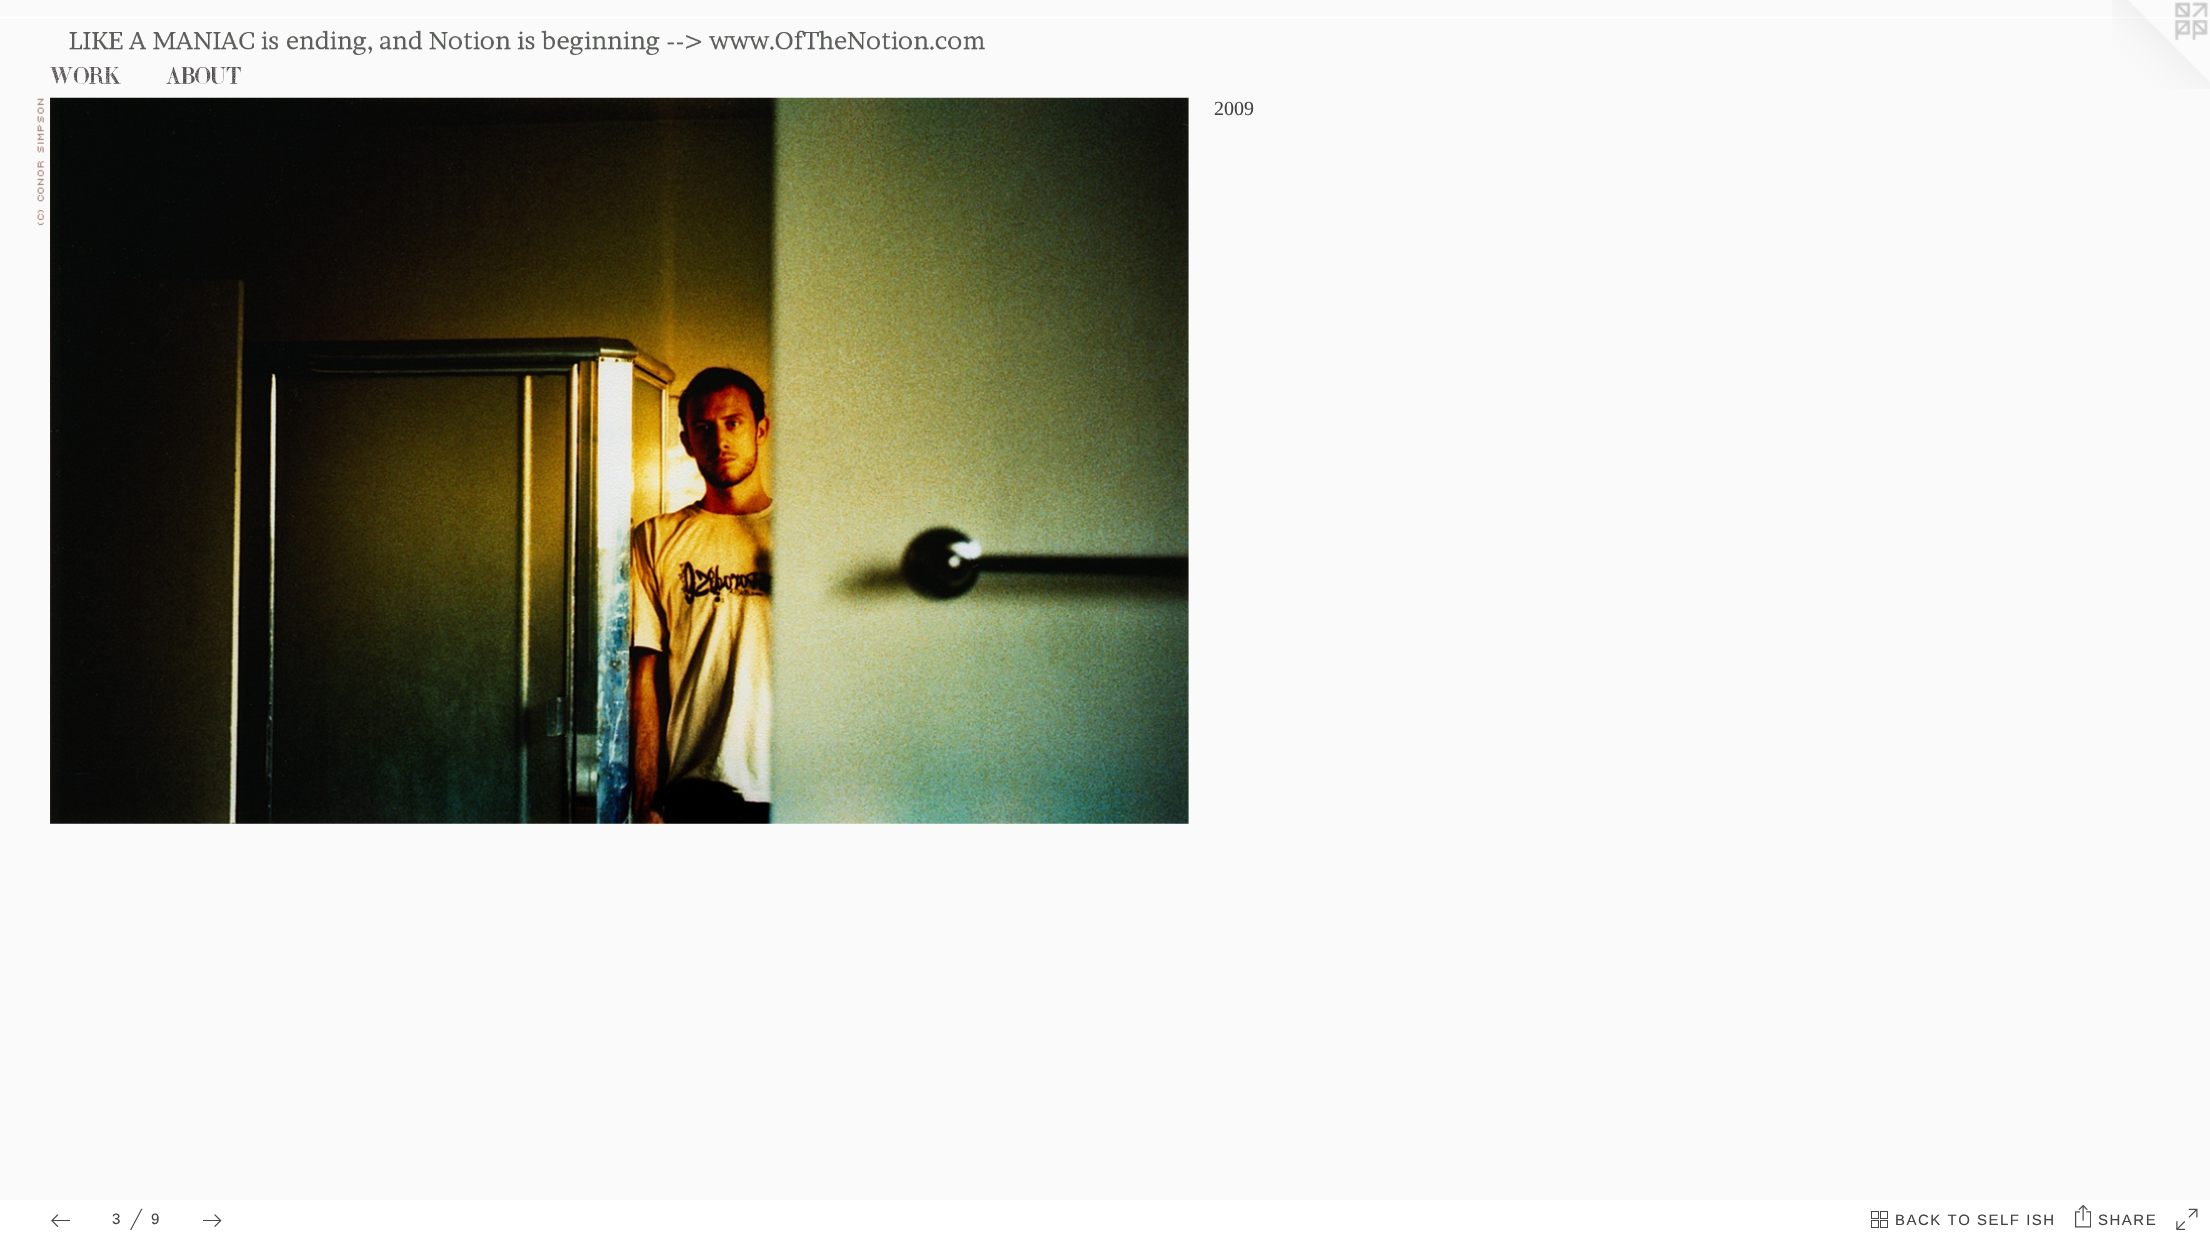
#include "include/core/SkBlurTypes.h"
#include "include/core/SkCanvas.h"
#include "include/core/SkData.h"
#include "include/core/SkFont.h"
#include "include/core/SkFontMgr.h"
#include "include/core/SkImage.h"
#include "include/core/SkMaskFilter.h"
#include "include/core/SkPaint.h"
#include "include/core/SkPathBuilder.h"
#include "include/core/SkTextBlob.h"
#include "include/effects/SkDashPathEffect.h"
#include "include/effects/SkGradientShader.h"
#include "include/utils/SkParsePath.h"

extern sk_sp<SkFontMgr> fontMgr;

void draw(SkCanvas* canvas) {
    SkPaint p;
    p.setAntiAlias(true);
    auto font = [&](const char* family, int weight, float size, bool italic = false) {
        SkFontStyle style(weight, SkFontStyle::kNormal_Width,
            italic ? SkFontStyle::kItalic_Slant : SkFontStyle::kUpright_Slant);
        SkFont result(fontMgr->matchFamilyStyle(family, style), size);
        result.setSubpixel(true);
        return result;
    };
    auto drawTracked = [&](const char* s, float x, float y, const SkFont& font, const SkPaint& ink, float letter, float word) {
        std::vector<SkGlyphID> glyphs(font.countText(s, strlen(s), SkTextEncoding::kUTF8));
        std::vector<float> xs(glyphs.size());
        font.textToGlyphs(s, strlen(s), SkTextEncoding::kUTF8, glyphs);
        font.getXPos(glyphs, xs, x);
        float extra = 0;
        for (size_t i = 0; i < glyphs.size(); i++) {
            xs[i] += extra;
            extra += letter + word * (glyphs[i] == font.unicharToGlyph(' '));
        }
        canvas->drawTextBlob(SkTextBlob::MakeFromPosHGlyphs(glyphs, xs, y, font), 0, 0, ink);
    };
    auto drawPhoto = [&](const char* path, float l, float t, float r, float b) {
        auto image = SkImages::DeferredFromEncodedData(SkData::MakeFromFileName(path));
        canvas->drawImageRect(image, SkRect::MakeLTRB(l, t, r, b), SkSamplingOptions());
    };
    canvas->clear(0xFFFAFAFA);
    p.setColor(0xFFFFFFFF);
    canvas->drawRect(SkRect::MakeLTRB(0, 17, 2210, 18), p);
    drawPhoto("media/1.png", 2112, 0, 2210, 89);
    drawPhoto("media/2.png", 69, 30, 985, 55);
    drawPhoto("media/3.png", 50, 66, 122, 84);
    drawPhoto("media/4.png", 166, 67, 241, 84);
    drawPhoto("media/5.png", 37, 98, 44, 226);
    drawPhoto("media/6.png", 50, 97, 1189, 824);
    auto font1 = font("Liberation Serif", 400, 20);
    p.setColor(0xFF424242);
    canvas->drawString("2009", 1214, 115, font1, p);
    p.setColor(0xFFFFFFFF);
    canvas->drawRect(SkRect::MakeLTRB(0, 1200, 2210, 1233), p);
    drawPhoto("media/7.png", 51, 1214, 70, 1227);
    auto font2 = font("Liberation Sans", 400, 15);
    p.setColor(0xFF424242);
    drawTracked("3", 112, 1224, font2, p, 1.5f, 0);
    drawPhoto("media/8.png", 130, 1208, 143, 1230);
    drawTracked("9", 151, 1224, font2, p, 1.5f, 0);
    drawPhoto("media/9.png", 203, 1214, 222, 1227);
    drawPhoto("media/10.png", 1871, 1211, 1888, 1228);
    drawTracked("BACK TO SELF ISH", 1895, 1225, font2, p, 1.5f, 0);
    drawPhoto("media/11.png", 2075, 1205, 2091, 1228);
    drawTracked("SHARE", 2098, 1225, font2, p, 1.5f, 0);
    drawPhoto("media/12.png", 2176, 1208, 2198, 1230);
}
